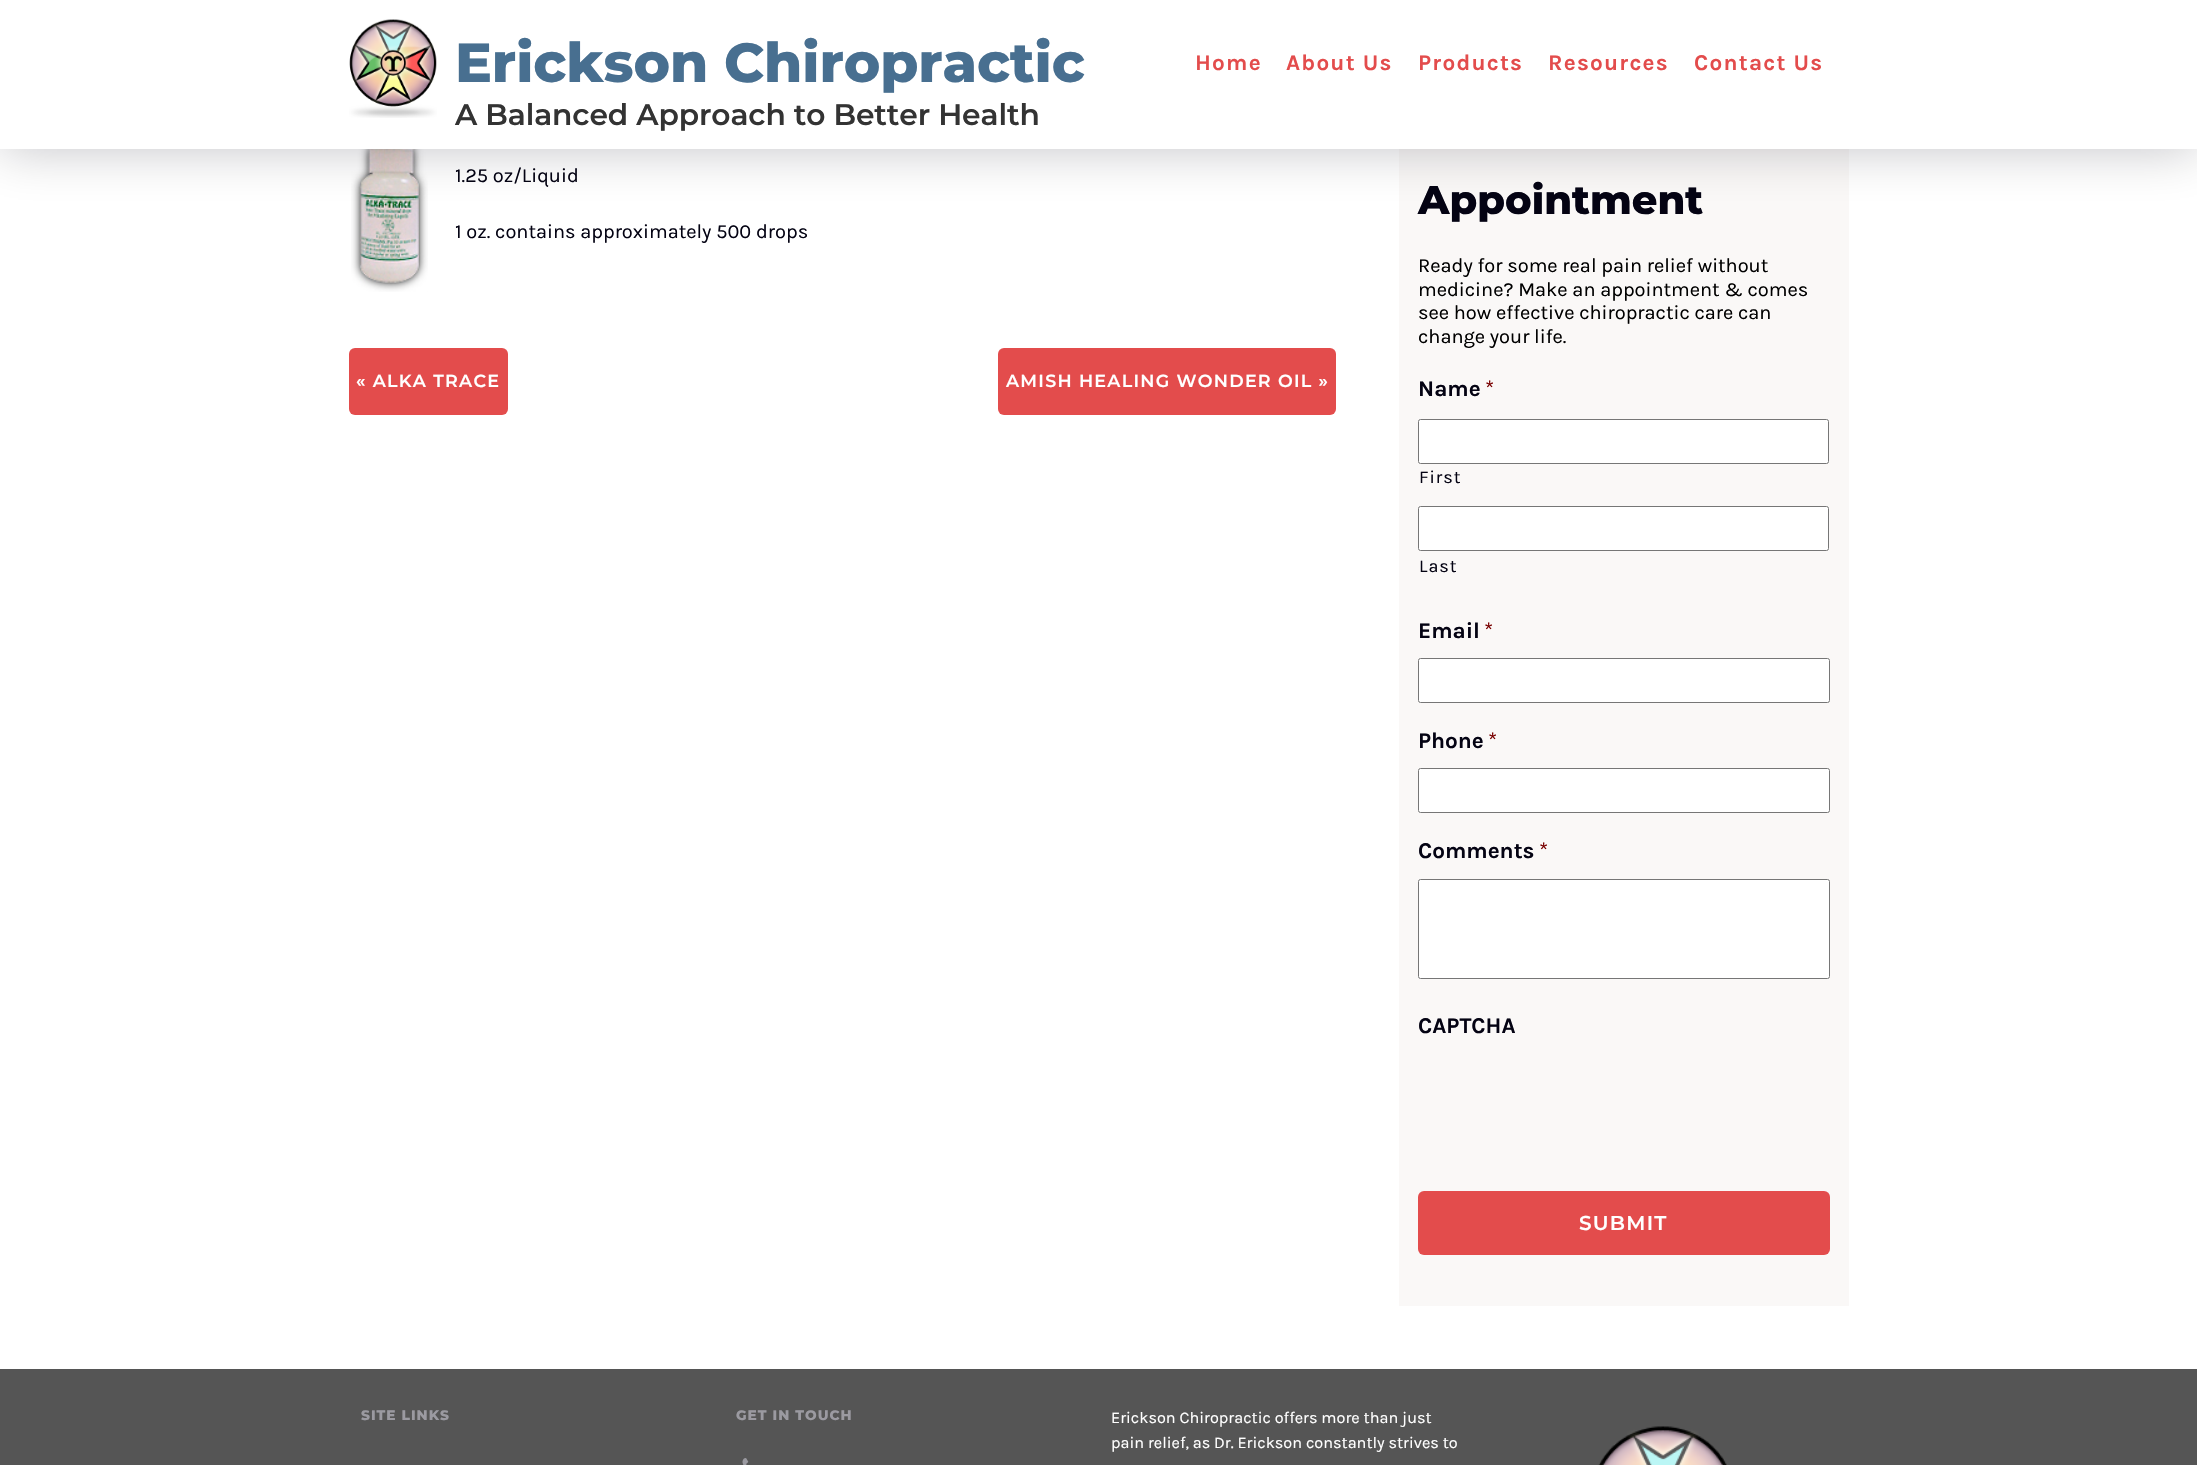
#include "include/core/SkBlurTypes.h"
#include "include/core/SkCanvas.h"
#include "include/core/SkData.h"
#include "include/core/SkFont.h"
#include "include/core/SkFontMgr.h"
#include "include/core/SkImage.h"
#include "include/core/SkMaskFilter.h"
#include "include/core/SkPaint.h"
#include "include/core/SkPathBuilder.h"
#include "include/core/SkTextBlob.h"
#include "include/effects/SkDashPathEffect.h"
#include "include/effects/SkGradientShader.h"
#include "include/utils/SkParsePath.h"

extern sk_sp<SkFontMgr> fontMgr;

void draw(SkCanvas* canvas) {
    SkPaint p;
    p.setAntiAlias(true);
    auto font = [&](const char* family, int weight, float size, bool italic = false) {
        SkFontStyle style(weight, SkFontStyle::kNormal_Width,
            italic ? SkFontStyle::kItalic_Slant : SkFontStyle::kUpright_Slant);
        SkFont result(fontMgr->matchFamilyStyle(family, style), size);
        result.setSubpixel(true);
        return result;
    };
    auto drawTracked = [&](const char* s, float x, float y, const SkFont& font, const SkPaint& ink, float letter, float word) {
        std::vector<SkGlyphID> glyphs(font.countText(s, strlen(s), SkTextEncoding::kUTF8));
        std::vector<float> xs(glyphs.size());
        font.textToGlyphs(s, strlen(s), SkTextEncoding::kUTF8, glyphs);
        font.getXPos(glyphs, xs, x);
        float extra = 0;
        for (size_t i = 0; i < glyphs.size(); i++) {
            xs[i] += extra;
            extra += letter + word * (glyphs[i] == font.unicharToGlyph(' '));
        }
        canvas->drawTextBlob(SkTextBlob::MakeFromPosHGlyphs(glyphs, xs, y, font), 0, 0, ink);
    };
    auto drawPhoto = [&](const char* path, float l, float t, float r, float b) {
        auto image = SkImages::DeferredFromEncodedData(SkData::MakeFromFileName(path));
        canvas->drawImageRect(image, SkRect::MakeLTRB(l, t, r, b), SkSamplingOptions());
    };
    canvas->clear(0xFFFFFFFF);
    drawPhoto("media/2.png", 351, 149, 428, 292);
    p.setColor(0xFFFAF8F7);
    canvas->drawRect(SkRect::MakeLTRB(1399, 149, 1849, 1306), p);
    p.setColor(0x3D040313);
    p.setMaskFilter(SkMaskFilter::MakeBlur(kNormal_SkBlurStyle, 25));
    canvas->drawRect(SkRect::MakeLTRB(0, -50, 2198, 149), p);
    p.setMaskFilter(nullptr);
    p.setColor(0xFFFFFFFF);
    canvas->drawRect(SkRect::MakeLTRB(0, 0, 2197, 149), p);
    drawPhoto("media/1.png", 349, 19, 437, 118);
    auto font1 = font("Montserrat", 800, 55);
    p.setColor(0xFF486F90);
    drawTracked("Erickson Chiropractic", 455, 82, font1, p, -0.1f, 0);
    auto font2 = font("Montserrat", 600, 29.7f);
    p.setColor(0xFF333333);
    drawTracked("A Balanced Approach to Better Health", 455, 125, font2, p, -0.1f, 0);
    auto font3 = font("Karla", 700, 22.5f);
    p.setColor(0xFFE34C4C);
    {
        const struct { const char* s; float x, y; } items[] = {
            {"Home", 1195, 70},
            {"About Us", 1286, 70},
            {"Products", 1418, 70},
            {"Resources", 1548, 70},
            {"Contact Us", 1694, 70},
        };
        for (auto [s, x, y] : items) {
            drawTracked(s, x, y, font3, p, 1.25f, 0);
        }
    }
    auto font4 = font("Karla", 400, 20);
    p.setColor(0xFF040313);
    canvas->drawString("1.25 oz/Liquid", 455, 182, font4, p);
    canvas->drawString("1 oz. contains approximately 500 drops", 455, 238, font4, p);
    p.setColor(0xFFE34C4C);
    canvas->drawRoundRect(SkRect::MakeLTRB(349, 348, 508, 415), 6, 6, p);
    auto font5 = font("Montserrat", 600, 17.5f);
    p.setColor(0xFFFFFFFF);
    drawTracked("« ALKA TRACE", 356, 387, font5, p, 1.25f, 0);
    p.setColor(0xFFE34C4C);
    canvas->drawRoundRect(SkRect::MakeLTRB(998, 348, 1336, 415), 6, 6, p);
    p.setColor(0xFFFFFFFF);
    drawTracked("AMISH HEALING WONDER OIL »", 1006, 387, font5, p, 1.25f, 0);
    auto font6 = font("Montserrat", 800, 40);
    p.setColor(0xFF040313);
    canvas->drawString("Appointment", 1418, 214, font6, p);
    p.setColor(0xFF000000);
    {
        const struct { const char* s; float x, y; } items[] = {
            {"Ready for some real pain relief without", 1418, 272},
            {"medicine? Make an appointment & comes", 1418, 296},
            {"see how effective chiropractic care can", 1418, 319},
            {"change your life.", 1418, 343},
        };
        for (auto [s, x, y] : items) {
            canvas->drawString(s, x, y, font4, p);
        }
    }
    p.setColor(0xFF040313);
    canvas->drawString("Name", 1418, 396, font3, p);
    auto font7 = font("Karla", 400, 22.5f);
    p.setColor(0xFF790000);
    canvas->drawString("*", 1485, 396, font7, p);
    p.setColor(0xFFFFFFFF);
    canvas->drawRoundRect(SkRect::MakeLTRB(1418.5f, 419.5f, 1828.5f, 463.5f), 2, 2, p);
    p.setStyle(SkPaint::kStroke_Style);
    p.setStrokeWidth(1);
    p.setColor(0xFF767676);
    canvas->drawRoundRect(SkRect::MakeLTRB(1418.5f, 419.5f, 1828.5f, 463.5f), 2, 2, p);
    auto font8 = font("Karla", 400, 18);
    p.setStyle(SkPaint::kFill_Style);
    p.setColor(0xFF040313);
    drawTracked("First", 1419, 483, font8, p, 1, 0);
    p.setColor(0xFFFFFFFF);
    canvas->drawRoundRect(SkRect::MakeLTRB(1418.5f, 506.5f, 1828.5f, 550.5f), 2, 2, p);
    p.setStyle(SkPaint::kStroke_Style);
    p.setColor(0xFF767676);
    canvas->drawRoundRect(SkRect::MakeLTRB(1418.5f, 506.5f, 1828.5f, 550.5f), 2, 2, p);
    p.setStyle(SkPaint::kFill_Style);
    p.setColor(0xFF040313);
    drawTracked("Last", 1419, 572, font8, p, 1, 0);
    canvas->drawString("Email", 1418, 638, font3, p);
    p.setColor(0xFF790000);
    canvas->drawString("*", 1484, 638, font7, p);
    p.setColor(0xFFFFFFFF);
    canvas->drawRoundRect(SkRect::MakeLTRB(1418.5f, 658.5f, 1829.5f, 702.5f), 2, 2, p);
    p.setStyle(SkPaint::kStroke_Style);
    p.setColor(0xFF767676);
    canvas->drawRoundRect(SkRect::MakeLTRB(1418.5f, 658.5f, 1829.5f, 702.5f), 2, 2, p);
    p.setStyle(SkPaint::kFill_Style);
    p.setColor(0xFF040313);
    canvas->drawString("Phone", 1418, 748, font3, p);
    p.setColor(0xFF790000);
    canvas->drawString("*", 1488, 748, font7, p);
    p.setColor(0xFFFFFFFF);
    canvas->drawRoundRect(SkRect::MakeLTRB(1418.5f, 768.5f, 1829.5f, 812.5f), 2, 2, p);
    p.setStyle(SkPaint::kStroke_Style);
    p.setColor(0xFF767676);
    canvas->drawRoundRect(SkRect::MakeLTRB(1418.5f, 768.5f, 1829.5f, 812.5f), 2, 2, p);
    p.setStyle(SkPaint::kFill_Style);
    p.setColor(0xFF040313);
    canvas->drawString("Comments", 1418, 858, font3, p);
    p.setColor(0xFF790000);
    canvas->drawString("*", 1539, 858, font7, p);
    p.setColor(0xFFFFFFFF);
    canvas->drawRoundRect(SkRect::MakeLTRB(1418.5f, 879.5f, 1829.5f, 978.5f), 2, 2, p);
    p.setStyle(SkPaint::kStroke_Style);
    p.setColor(0xFF767676);
    canvas->drawRoundRect(SkRect::MakeLTRB(1418.5f, 879.5f, 1829.5f, 978.5f), 2, 2, p);
    p.setStyle(SkPaint::kFill_Style);
    p.setColor(0xFF040313);
    canvas->drawString("CAPTCHA", 1418, 1033, font3, p);
    p.setColor(0xFFE34C4C);
    canvas->drawRoundRect(SkRect::MakeLTRB(1418, 1191, 1830, 1255), 6, 6, p);
    auto font9 = font("Montserrat", 600, 20);
    p.setColor(0xFFFFFFFF);
    drawTracked("SUBMIT", 1579, 1230, font9, p, 1.25f, 0);
    p.setColor(0xFF555555);
    canvas->drawRect(SkRect::MakeLTRB(0, 1369, 2197, 1465), p);
    auto font10 = font("Montserrat", 800, 13.75f);
    p.setColor(0xFF9B9AA1);
    drawTracked("SITE LINKS", 361, 1420, font10, p, 1, 0);
    drawTracked("GET IN TOUCH", 736, 1420, font10, p, 1, 0);
    drawPhoto("media/3.png", 742, 1458, 749, 1465);
    auto font11 = font("Karla", 400, 16.25f);
    p.setColor(0xFFFFFFFF);
    canvas->drawString("Erickson Chiropractic offers more than just", 1111, 1423, font11, p);
    canvas->drawString("pain relief, as Dr. Erickson constantly strives to", 1111, 1448, font11, p);
    drawPhoto("media/4.png", 1598, 1426, 1727, 1465);
}
